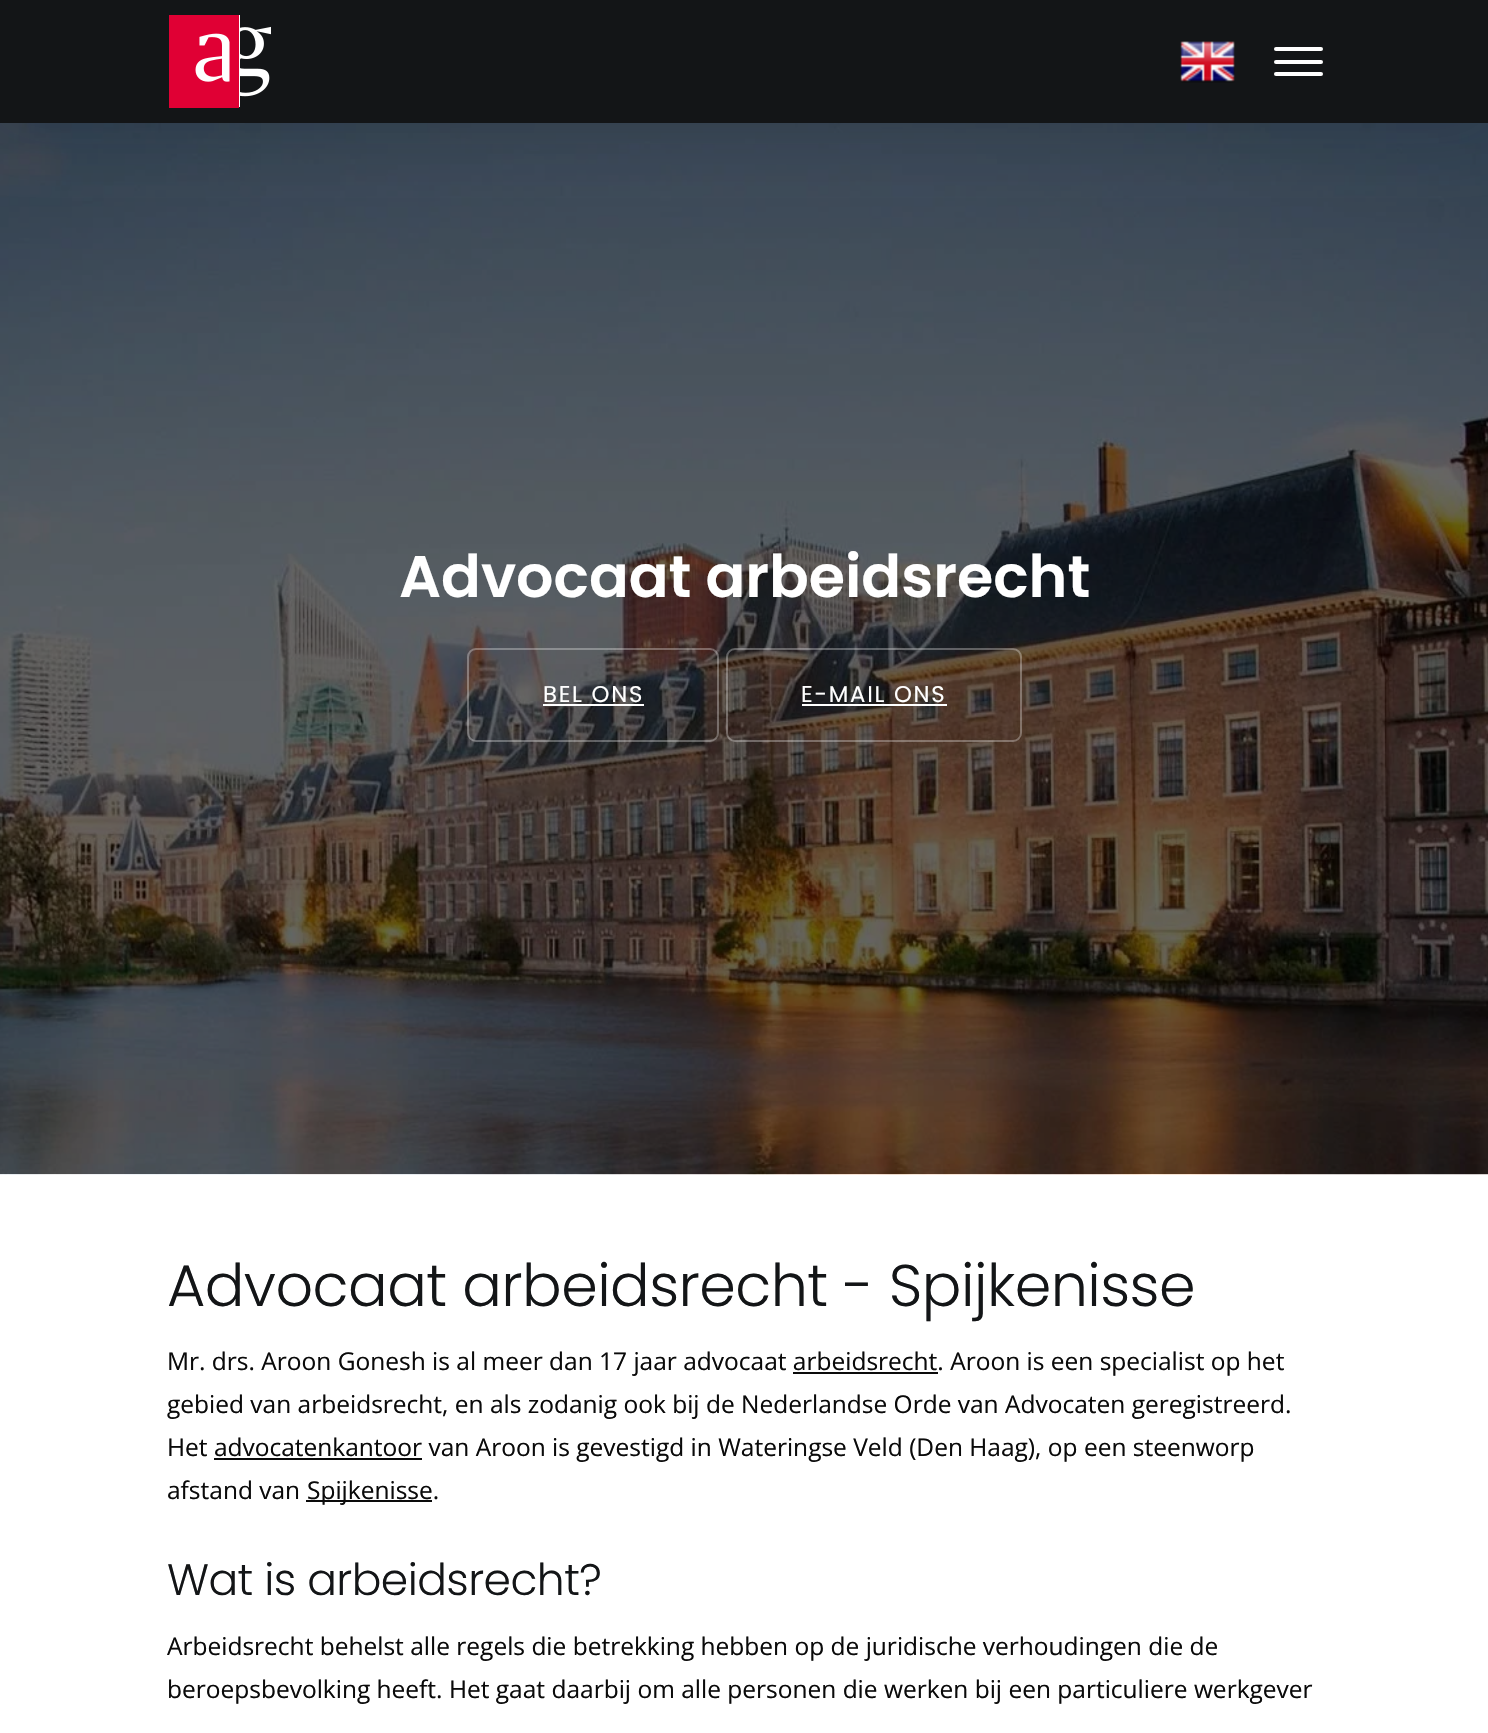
#include "include/core/SkBlurTypes.h"
#include "include/core/SkCanvas.h"
#include "include/core/SkData.h"
#include "include/core/SkFont.h"
#include "include/core/SkFontMgr.h"
#include "include/core/SkImage.h"
#include "include/core/SkMaskFilter.h"
#include "include/core/SkPaint.h"
#include "include/core/SkPathBuilder.h"
#include "include/core/SkTextBlob.h"
#include "include/effects/SkDashPathEffect.h"
#include "include/effects/SkGradientShader.h"
#include "include/utils/SkParsePath.h"

extern sk_sp<SkFontMgr> fontMgr;

void draw(SkCanvas* canvas) {
    SkPaint p;
    p.setAntiAlias(true);
    auto font = [&](const char* family, int weight, float size, bool italic = false) {
        SkFontStyle style(weight, SkFontStyle::kNormal_Width,
            italic ? SkFontStyle::kItalic_Slant : SkFontStyle::kUpright_Slant);
        SkFont result(fontMgr->matchFamilyStyle(family, style), size);
        result.setSubpixel(true);
        return result;
    };
    auto drawTracked = [&](const char* s, float x, float y, const SkFont& font, const SkPaint& ink, float letter, float word) {
        std::vector<SkGlyphID> glyphs(font.countText(s, strlen(s), SkTextEncoding::kUTF8));
        std::vector<float> xs(glyphs.size());
        font.textToGlyphs(s, strlen(s), SkTextEncoding::kUTF8, glyphs);
        font.getXPos(glyphs, xs, x);
        float extra = 0;
        for (size_t i = 0; i < glyphs.size(); i++) {
            xs[i] += extra;
            extra += letter + word * (glyphs[i] == font.unicharToGlyph(' '));
        }
        canvas->drawTextBlob(SkTextBlob::MakeFromPosHGlyphs(glyphs, xs, y, font), 0, 0, ink);
    };
    auto drawPhoto = [&](const char* path, float l, float t, float r, float b) {
        auto image = SkImages::DeferredFromEncodedData(SkData::MakeFromFileName(path));
        canvas->drawImageRect(image, SkRect::MakeLTRB(l, t, r, b), SkSamplingOptions());
    };
    canvas->clear(0xFFFFFFFF);
    drawPhoto("media/3.png", 0, 123, 1488, 1175);
    p.setColor(0x2B16191C);
    p.setMaskFilter(SkMaskFilter::MakeBlur(kNormal_SkBlurStyle, 31.5f));
    canvas->drawRect(SkRect::MakeLTRB(0, 0, 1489, 123), p);
    p.setMaskFilter(nullptr);
    p.setColor(0xFF131517);
    canvas->drawRect(SkRect::MakeLTRB(0, 0, 1488, 123), p);
    drawPhoto("media/1.png", 169, 15, 271, 108);
    drawPhoto("media/2.png", 1180, 41, 1235, 83);
    p.setColor(0xFFFFFFFF);
    canvas->drawRoundRect(SkRect::MakeLTRB(1274, 60, 1323, 64), 2, 2, p);
    canvas->drawRoundRect(SkRect::MakeLTRB(1274, 47, 1323, 51), 2, 2, p);
    canvas->drawRoundRect(SkRect::MakeLTRB(1274, 72, 1323, 76), 2, 2, p);
    auto font1 = font("Poppins", 600, 58.75f);
    canvas->drawString("Advocaat arbeidsrecht", 399, 597, font1, p);
    p.setStyle(SkPaint::kStroke_Style);
    p.setStrokeWidth(2);
    p.setColor(0x4DFFFFFF);
    canvas->drawRoundRect(SkRect::MakeLTRB(468, 649, 718, 741), 8, 8, p);
    auto font2 = font("Poppins", 400, 22.75f);
    p.setStyle(SkPaint::kFill_Style);
    p.setColor(0xFFFFFFFF);
    drawTracked("BEL ONS", 543, 702, font2, p, 1.75f, 0);
    canvas->drawRect(SkRect::MakeLTRB(543, 704, 644, 706), p);
    p.setStyle(SkPaint::kStroke_Style);
    p.setColor(0x4DFFFFFF);
    canvas->drawRoundRect(SkRect::MakeLTRB(727, 649, 1021, 741), 8, 8, p);
    p.setStyle(SkPaint::kFill_Style);
    p.setColor(0xFFFFFFFF);
    drawTracked("E-MAIL ONS", 801, 702, font2, p, 1.75f, 0);
    canvas->drawRect(SkRect::MakeLTRB(802, 704, 947, 706), p);
    auto font3 = font("Poppins", 300, 58.75f);
    p.setColor(0xFF131517);
    drawTracked("Advocaat arbeidsrecht - Spijkenisse", 167, 1306, font3, p, -0.55f, 0);
    auto font4 = font("Open Sans", 400, 24.5f);
    p.setColor(0xFF0A0A0A);
    canvas->drawString("Mr. drs. Aroon Gonesh is al meer dan 17 jaar advocaat arbeidsrecht. Aroon is een specialist op het", 167, 1370, font4, p);
    canvas->drawRect(SkRect::MakeLTRB(793, 1372, 938, 1374), p);
    canvas->drawString("gebied van arbeidsrecht, en als zodanig ook bij de Nederlandse Orde van Advocaten geregistreerd.", 167, 1413, font4, p);
    canvas->drawString("Het advocatenkantoor van Aroon is gevestigd in Wateringse Veld (Den Haag), op een steenworp", 167, 1456, font4, p);
    canvas->drawRect(SkRect::MakeLTRB(214, 1458, 422, 1460), p);
    canvas->drawString("afstand van", 167, 1499, font4, p);
    canvas->drawRect(SkRect::MakeLTRB(306, 1500, 432, 1502), p);
    canvas->drawString("Spijkenisse.", 307, 1499, font4, p);
    auto font5 = font("Poppins", 300, 44);
    p.setColor(0xFF131517);
    drawTracked("Wat is arbeidsrecht?", 167, 1595, font5, p, -0.55f, 0);
    p.setColor(0xFF0A0A0A);
    canvas->drawString("Arbeidsrecht behelst alle regels die betrekking hebben op de juridische verhoudingen die de", 167, 1655, font4, p);
    canvas->drawString("beroepsbevolking heeft. Het gaat daarbij om alle personen die werken bij een particuliere werkgever", 167, 1698, font4, p);
}
